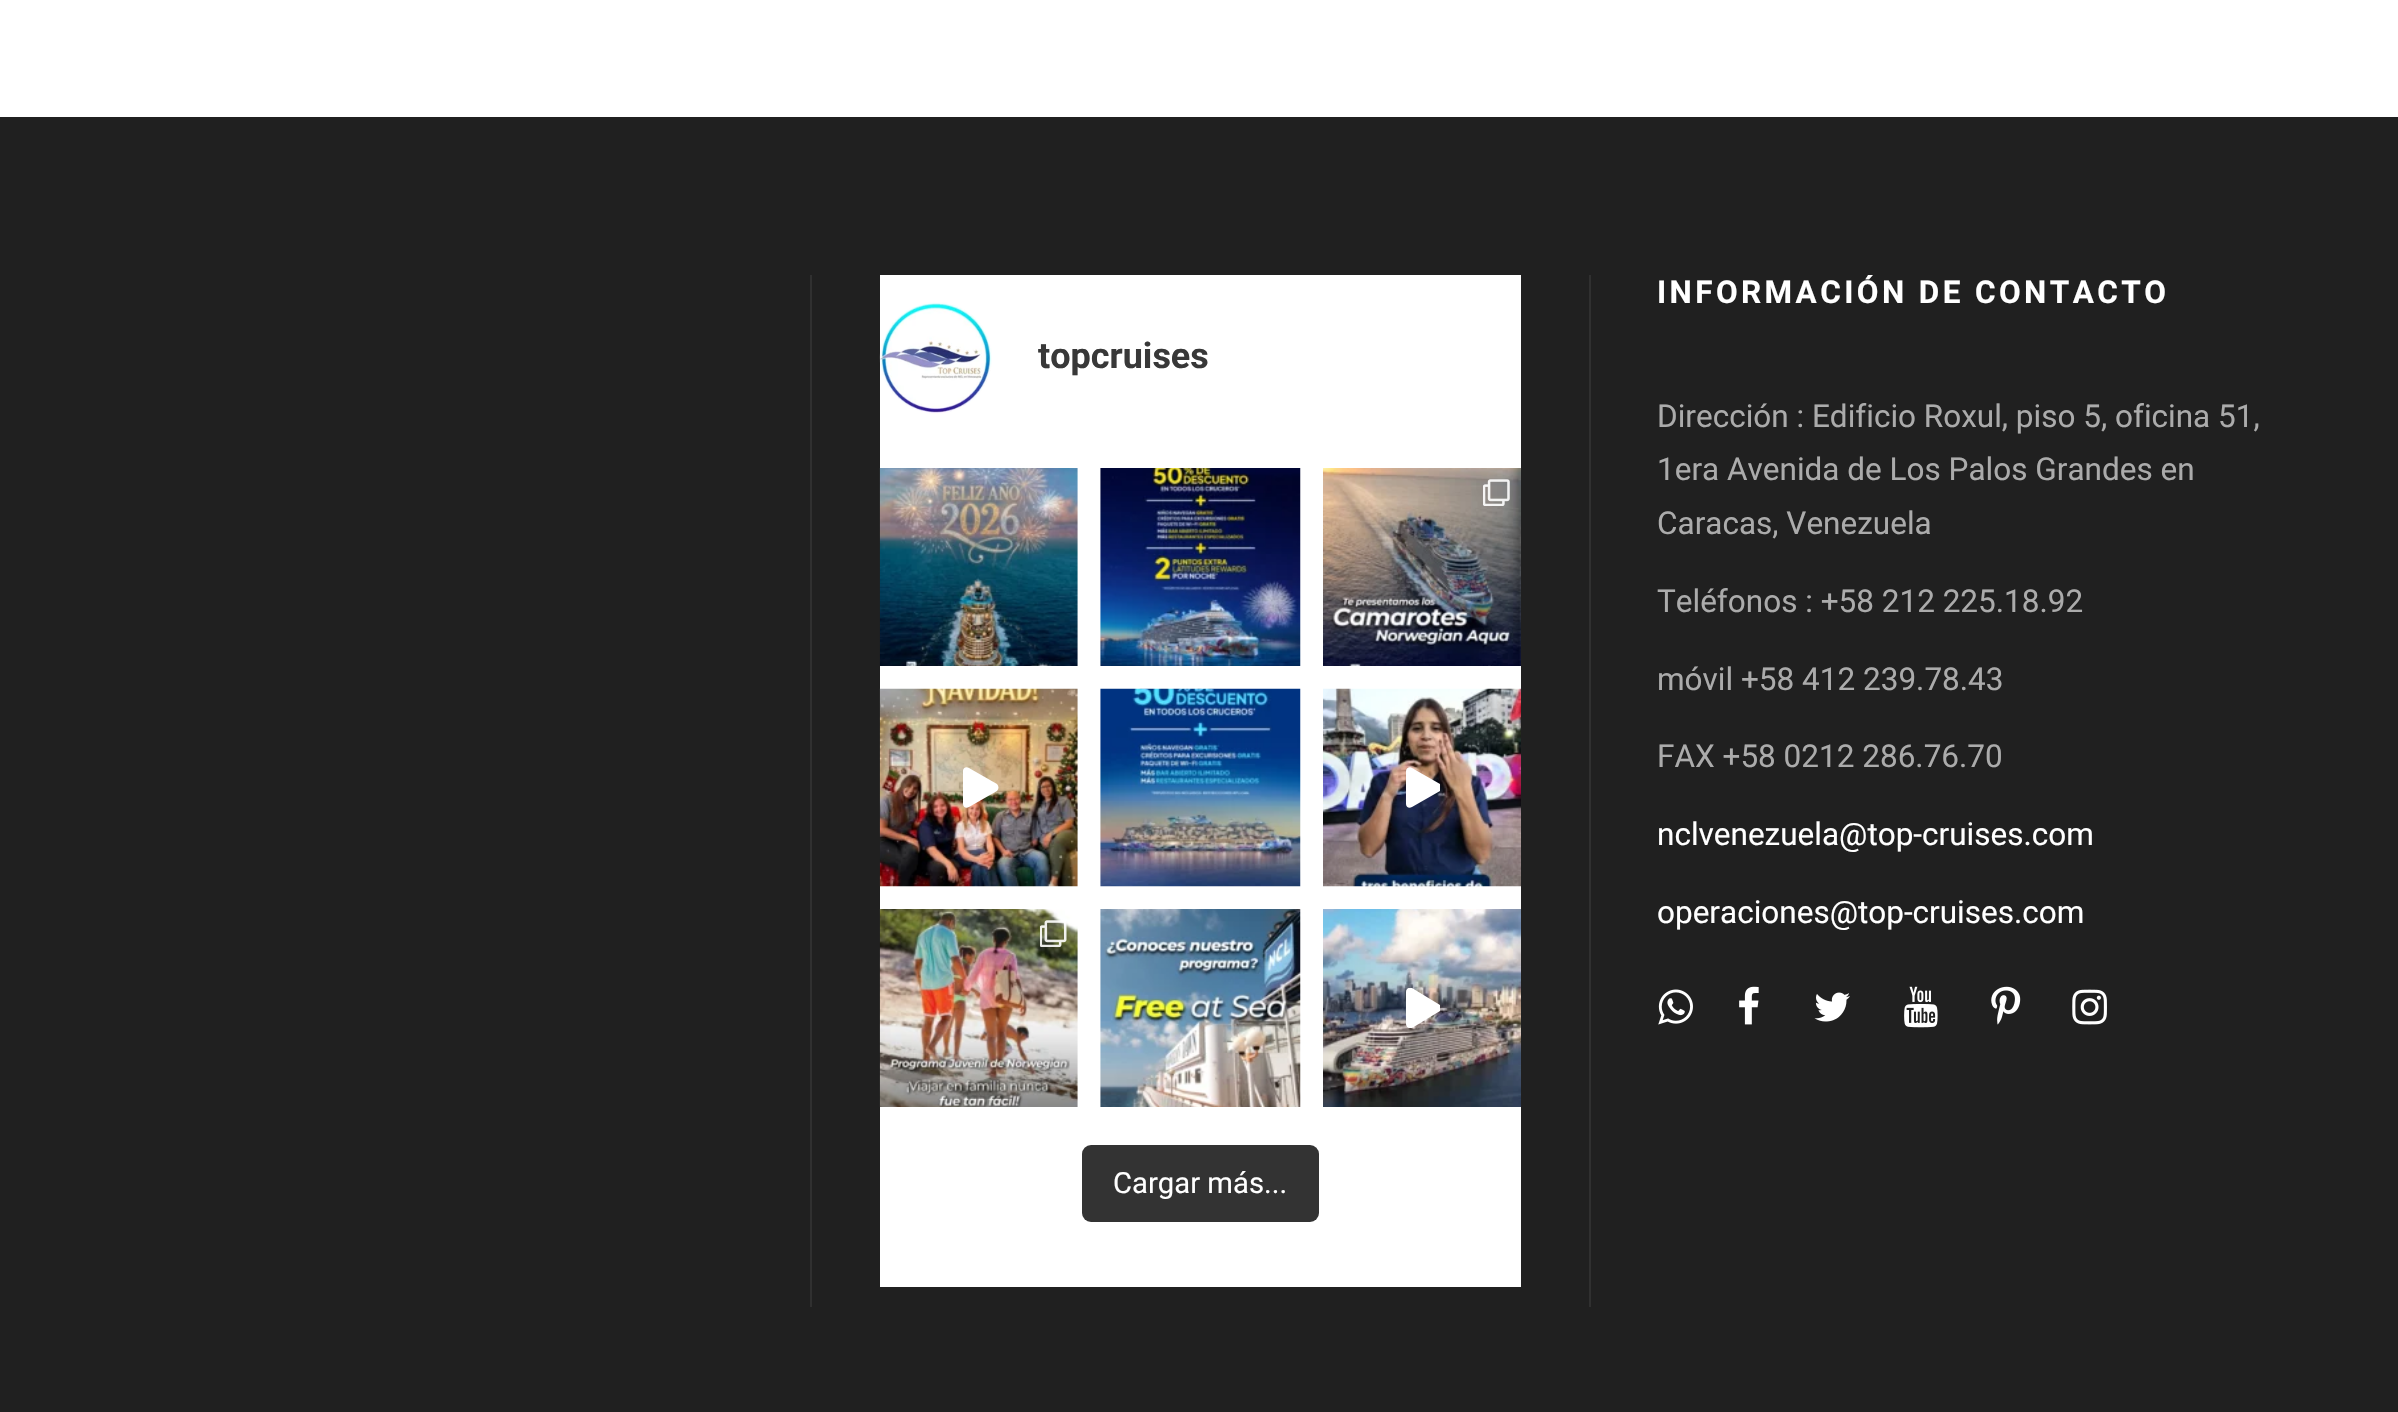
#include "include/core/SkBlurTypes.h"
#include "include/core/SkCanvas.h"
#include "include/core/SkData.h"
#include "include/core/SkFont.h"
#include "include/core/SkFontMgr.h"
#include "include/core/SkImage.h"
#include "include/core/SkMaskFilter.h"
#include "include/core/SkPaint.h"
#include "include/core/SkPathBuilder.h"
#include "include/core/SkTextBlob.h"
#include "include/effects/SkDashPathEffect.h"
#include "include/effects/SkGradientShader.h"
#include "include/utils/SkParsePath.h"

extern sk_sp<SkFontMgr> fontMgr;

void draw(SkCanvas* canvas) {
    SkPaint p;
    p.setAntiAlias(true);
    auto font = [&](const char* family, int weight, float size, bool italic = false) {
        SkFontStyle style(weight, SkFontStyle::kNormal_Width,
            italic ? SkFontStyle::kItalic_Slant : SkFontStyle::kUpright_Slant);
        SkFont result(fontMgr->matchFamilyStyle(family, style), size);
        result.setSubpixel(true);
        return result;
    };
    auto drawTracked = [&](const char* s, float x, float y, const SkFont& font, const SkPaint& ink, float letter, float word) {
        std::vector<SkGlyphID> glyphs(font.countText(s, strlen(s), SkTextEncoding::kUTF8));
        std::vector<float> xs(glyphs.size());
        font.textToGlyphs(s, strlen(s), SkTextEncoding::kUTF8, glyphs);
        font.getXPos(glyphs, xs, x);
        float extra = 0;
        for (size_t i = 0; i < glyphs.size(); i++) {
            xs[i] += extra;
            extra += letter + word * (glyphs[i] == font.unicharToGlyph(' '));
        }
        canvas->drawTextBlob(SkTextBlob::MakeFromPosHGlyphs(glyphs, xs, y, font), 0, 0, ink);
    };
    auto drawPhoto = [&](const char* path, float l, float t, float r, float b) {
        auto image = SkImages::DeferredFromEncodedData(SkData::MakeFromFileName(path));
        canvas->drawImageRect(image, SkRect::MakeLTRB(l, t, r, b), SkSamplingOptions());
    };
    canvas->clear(0xFFFFFFFF);
    {
        const struct { float l, t, r, b; SkColor color; } items[] = {
            {0, 117, 2398, 1412, 0xFF202020},
            {810, 275, 812, 1307, 0xFF303030},
            {880, 275, 1521, 1287, 0xFFFFFFFF},
        };
        for (auto [l, t, r, b, color] : items) {
            p.setColor(color);
            canvas->drawRect(SkRect::MakeLTRB(l, t, r, b), p);
        }
    }
    drawPhoto("media/1.png", 879, 302, 992, 414);
    auto font1 = font("Roboto", 700, 36);
    p.setColor(0xFF383838);
    canvas->drawString("topcruises", 1038, 368, font1, p);
    drawPhoto("media/2.png", 879, 468, 1078, 666);
    drawPhoto("media/3.png", 1100, 468, 1301, 666);
    drawPhoto("media/4.png", 1323, 468, 1521, 666);
    drawPhoto("media/5.png", 1483, 479, 1510, 506);
    drawPhoto("media/6.png", 879, 688, 1078, 887);
    p.setColor(0xFFFFFFFF);
    canvas->drawPath(SkPathBuilder().moveTo(997, 784).lineTo(969, 768).cubicTo(966, 766, 963, 768, 963, 771).lineTo(963, 804).cubicTo(963, 807, 966, 809, 969, 807).lineTo(997, 791).cubicTo(999, 789, 999, 786, 997, 784).close().detach(), p);
    drawPhoto("media/7.png", 1100, 688, 1301, 887);
    drawPhoto("media/8.png", 1323, 688, 1521, 887);
    canvas->save();
    canvas->clipRect(SkRect::MakeLTRB(1406, 767, 1440, 808));
    canvas->drawPath(SkPathBuilder().moveTo(1440, 784).lineTo(1412, 768).cubicTo(1410, 766, 1406, 768, 1406, 771).lineTo(1406, 804).cubicTo(1406, 807, 1409, 809, 1412, 807).lineTo(1440, 791).cubicTo(1442, 789, 1442, 786, 1440, 784).close().detach(), p);
    canvas->restore();
    drawPhoto("media/9.png", 879, 909, 1078, 1107);
    drawPhoto("media/10.png", 1040, 920, 1067, 947);
    drawPhoto("media/11.png", 1100, 909, 1301, 1107);
    drawPhoto("media/12.png", 1323, 909, 1521, 1107);
    canvas->save();
    canvas->clipRect(SkRect::MakeLTRB(1406, 988, 1440, 1028));
    canvas->drawPath(SkPathBuilder().moveTo(1440, 1005).lineTo(1412, 988).cubicTo(1410, 987, 1406, 988, 1406, 992).lineTo(1406, 1024).cubicTo(1406, 1027, 1409, 1029, 1412, 1028).lineTo(1440, 1011).cubicTo(1442, 1010, 1442, 1006, 1440, 1005).close().detach(), p);
    canvas->restore();
    p.setColor(0xFF333333);
    canvas->drawRoundRect(SkRect::MakeLTRB(1082, 1145, 1319, 1222), 9, 9, p);
    auto font2 = font("Roboto", 400, 29.25f);
    p.setColor(0xFFFFFFFF);
    canvas->drawString("Cargar más...", 1113, 1193, font2, p);
    p.setColor(0xFF303030);
    canvas->drawRect(SkRect::MakeLTRB(1589, 275, 1591, 1307), p);
    canvas->save();
    canvas->clipRect(SkRect::MakeLTRB(0, 275, 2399, 1307));
    auto font3 = font("Roboto", 700, 31.5f);
    p.setColor(0xFFFFFFFF);
    drawTracked("INFORMACIÓN DE CONTACTO", 1657, 303, font3, p, 3.4f, 0);
    canvas->restore();
    auto font4 = font("Roboto", 400, 31.5f);
    p.setColor(0xFFABABAB);
    {
        const struct { const char* s; float x, y; } items[] = {
            {"Dirección : Edificio Roxul, piso 5, oficina 51,", 1657, 427},
            {"1era Avenida de Los Palos Grandes en", 1657, 480},
            {"Caracas, Venezuela", 1657, 534},
            {"Teléfonos : +58 212 225.18.92", 1657, 612},
            {"móvil +58 412 239.78.43", 1657, 690},
            {"FAX +58 0212 286.76.70", 1657, 767},
        };
        for (auto [s, x, y] : items) {
            canvas->drawString(s, x, y, font4, p);
        }
    }
    p.setColor(0xFFFFFFFF);
    canvas->drawString("nclvenezuela@top-cruises.com", 1657, 845, font4, p);
    canvas->drawString("operaciones@top-cruises.com", 1657, 923, font4, p);
    drawPhoto("media/13.png", 1658, 989, 1693, 1025);
    drawPhoto("media/14.png", 1739, 986, 1759, 1025);
    drawPhoto("media/15.png", 1814, 992, 1850, 1022);
    drawPhoto("media/16.png", 1904, 986, 1938, 1028);
    drawPhoto("media/17.png", 1991, 986, 2021, 1025);
    drawPhoto("media/18.png", 2072, 989, 2107, 1025);
}
